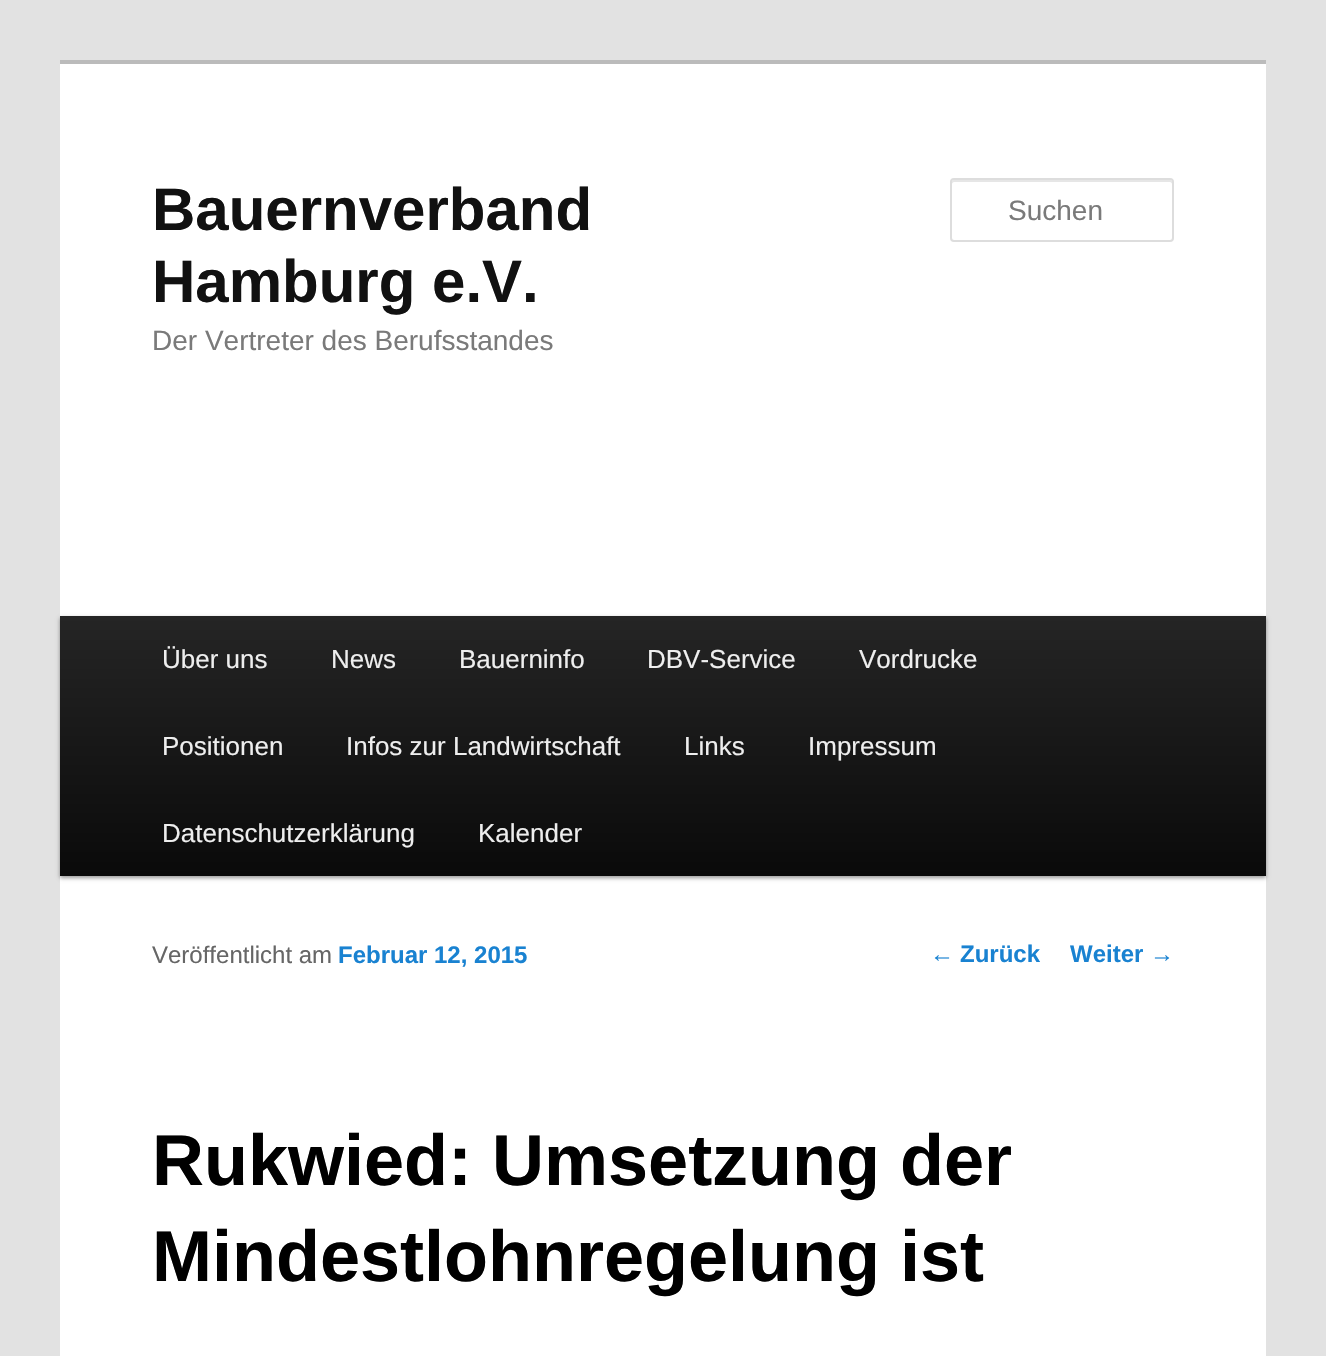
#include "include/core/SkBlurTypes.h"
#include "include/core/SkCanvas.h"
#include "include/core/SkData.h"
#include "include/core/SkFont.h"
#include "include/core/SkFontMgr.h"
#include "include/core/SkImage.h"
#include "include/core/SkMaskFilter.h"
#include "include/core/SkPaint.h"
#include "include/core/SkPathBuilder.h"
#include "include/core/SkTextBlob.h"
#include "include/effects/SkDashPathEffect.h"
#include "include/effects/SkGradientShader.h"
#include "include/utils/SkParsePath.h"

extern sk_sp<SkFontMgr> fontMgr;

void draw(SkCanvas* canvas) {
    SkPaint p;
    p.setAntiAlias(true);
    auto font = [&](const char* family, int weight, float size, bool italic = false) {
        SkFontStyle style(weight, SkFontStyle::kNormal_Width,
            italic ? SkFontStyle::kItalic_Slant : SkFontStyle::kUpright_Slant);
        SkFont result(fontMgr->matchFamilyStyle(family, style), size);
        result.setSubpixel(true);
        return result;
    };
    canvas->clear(0xFFE2E2E2);
    p.setColor(0xFFFFFFFF);
    canvas->drawRect(SkRect::MakeLTRB(60, 64, 1266, 1356), p);
    p.setColor(0xFFBBBBBB);
    canvas->drawRect(SkRect::MakeLTRB(60, 60, 1266, 64), p);
    auto font1 = font("Liberation Sans", 700, 60);
    p.setColor(0xFF111111);
    canvas->drawString("Bauernverband", 152, 230, font1, p);
    canvas->drawString("Hamburg e.V.", 152, 302, font1, p);
    auto font2 = font("Liberation Sans", 400, 28);
    p.setColor(0xFF7A7A7A);
    canvas->drawString("Der Vertreter des Berufsstandes", 152, 350, font2, p);
    p.setColor(0xFFE6E6E6);
    canvas->drawPath(SkPathBuilder().moveTo(954, 182).lineTo(1170, 182).cubicTo(1171, 182, 1172, 183, 1172, 184).lineTo(1172, 182).cubicTo(1172, 181, 1171, 180, 1170, 180).lineTo(954, 180).cubicTo(953, 180, 952, 181, 952, 182).lineTo(952, 184).cubicTo(952, 183, 953, 182, 954, 182).close().detach(), p);
    p.setStyle(SkPaint::kStroke_Style);
    p.setStrokeWidth(2);
    p.setColor(0xFFDDDDDD);
    canvas->drawRoundRect(SkRect::MakeLTRB(951, 179, 1173, 241), 3, 3, p);
    p.setStyle(SkPaint::kFill_Style);
    p.setColor(0xFF7A7A7A);
    canvas->drawString("Suchen", 1008, 220, font2, p);
    p.setColor(0x66000000);
    p.setMaskFilter(SkMaskFilter::MakeBlur(kNormal_SkBlurStyle, 2));
    canvas->drawRect(SkRect::MakeLTRB(60, 618, 1266, 878), p);
    p.setMaskFilter(nullptr);
    {
        const SkColor colors[] = {0xFF252525, 0xFF0A0A0A};
        const float stops[] = {0, 1};
        const SkPoint ends[] = {{663, 616}, {663, 876}};
        p.setShader(SkGradientShader::MakeLinear(ends, colors, stops, 2, SkTileMode::kClamp));
        p.setAlpha(255);
    }
    canvas->drawRect(SkRect::MakeLTRB(60, 616, 1266, 876), p);
    auto font3 = font("Liberation Sans", 400, 26);
    p.setShader(nullptr);
    p.setColor(0xFFEEEEEE);
    {
        const struct { const char* s; float x, y; } items[] = {
            {"Über uns", 162, 668},
            {"News", 331, 668},
            {"Bauerninfo", 459, 668},
            {"DBV-Service", 647, 668},
            {"Vordrucke", 859, 668},
            {"Positionen", 162, 755},
            {"Infos zur Landwirtschaft", 346, 755},
            {"Links", 684, 755},
            {"Impressum", 808, 755},
            {"Datenschutzerklärung", 162, 842},
            {"Kalender", 478, 842},
        };
        for (auto [s, x, y] : items) {
            canvas->drawString(s, x, y, font3, p);
        }
    }
    auto font4 = font("Liberation Sans", 400, 24);
    p.setColor(0xFF666666);
    canvas->drawString("Veröffentlicht am", 152, 963, font4, p);
    auto font5 = font("Liberation Sans", 700, 24);
    p.setColor(0xFF1982D1);
    canvas->drawString("Februar 12, 2015", 338, 963, font5, p);
    auto font6 = font("Liberation Sans", 700, 72);
    p.setColor(0xFF000000);
    canvas->drawString("Rukwied: Umsetzung der", 152, 1185, font6, p);
    canvas->drawString("Mindestlohnregelung ist", 152, 1281, font6, p);
    p.setColor(0xFF1982D1);
    canvas->drawString("←", 930, 962, font4, p);
    canvas->drawString("Zurück", 960, 962, font5, p);
    canvas->drawString("Weiter", 1070, 962, font5, p);
    canvas->drawString("→", 1150, 962, font4, p);
}
